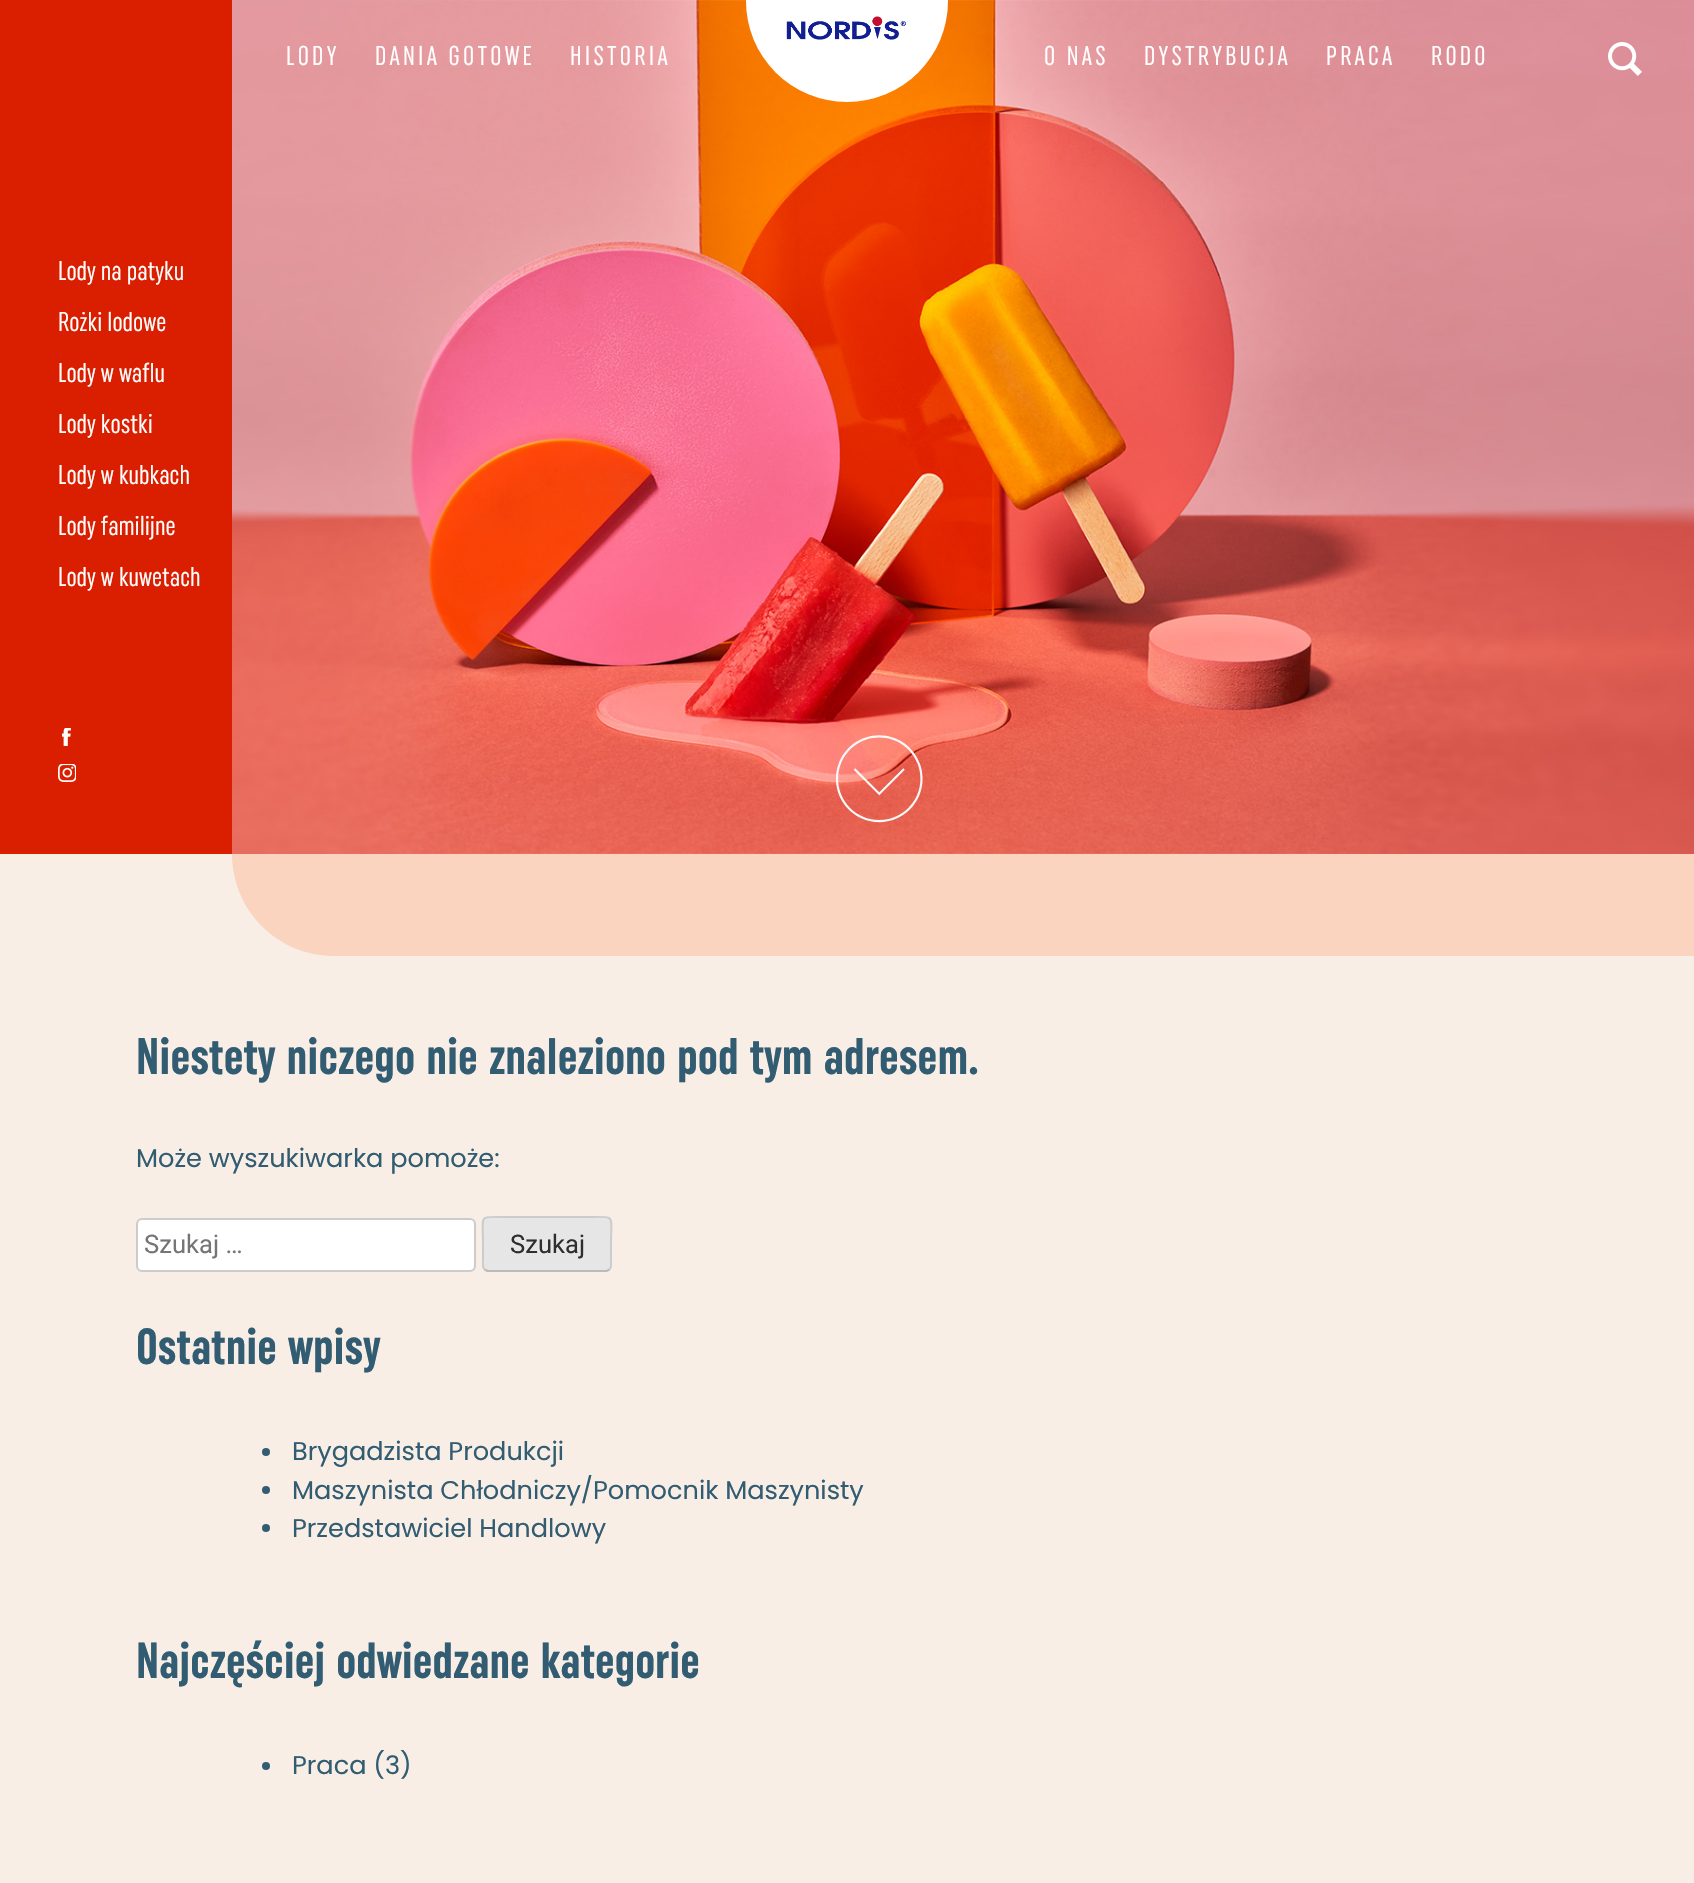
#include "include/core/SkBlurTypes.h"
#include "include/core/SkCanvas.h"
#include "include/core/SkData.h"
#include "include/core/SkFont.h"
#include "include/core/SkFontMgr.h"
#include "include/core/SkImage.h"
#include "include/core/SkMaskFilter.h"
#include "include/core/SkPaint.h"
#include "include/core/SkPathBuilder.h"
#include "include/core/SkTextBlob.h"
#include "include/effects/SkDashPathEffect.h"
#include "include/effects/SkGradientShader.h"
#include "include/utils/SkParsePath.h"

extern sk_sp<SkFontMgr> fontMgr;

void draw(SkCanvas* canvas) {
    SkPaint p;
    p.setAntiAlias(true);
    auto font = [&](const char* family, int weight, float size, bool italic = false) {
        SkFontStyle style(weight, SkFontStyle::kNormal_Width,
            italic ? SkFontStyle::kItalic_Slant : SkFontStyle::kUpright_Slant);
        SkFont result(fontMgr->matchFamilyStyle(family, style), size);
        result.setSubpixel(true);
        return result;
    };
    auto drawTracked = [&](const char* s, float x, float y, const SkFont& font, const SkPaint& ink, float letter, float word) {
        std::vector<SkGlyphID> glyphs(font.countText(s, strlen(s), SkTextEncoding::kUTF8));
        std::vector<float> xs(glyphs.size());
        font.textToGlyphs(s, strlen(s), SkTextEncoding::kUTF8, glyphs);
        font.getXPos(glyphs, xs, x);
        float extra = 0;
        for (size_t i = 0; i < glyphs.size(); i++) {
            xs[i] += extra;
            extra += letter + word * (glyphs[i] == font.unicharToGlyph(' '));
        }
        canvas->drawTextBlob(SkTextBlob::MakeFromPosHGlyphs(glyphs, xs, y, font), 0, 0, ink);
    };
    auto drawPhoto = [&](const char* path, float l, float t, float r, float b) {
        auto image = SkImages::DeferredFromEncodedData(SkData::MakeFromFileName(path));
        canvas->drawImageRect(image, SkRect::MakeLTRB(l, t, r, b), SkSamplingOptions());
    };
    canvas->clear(0xFFF8EEE5);
    drawPhoto("media/3.png", 232, 0, 1694, 854);
    p.setColor(0xFFFFFFFF);
    canvas->drawRoundRect(SkRect::MakeLTRB(746, -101, 948, 102), 101, 101, p);
    drawPhoto("media/1.png", 786, 16, 906, 40);
    drawPhoto("media/2.png", 1608, 42, 1642, 76);
    auto font1 = font("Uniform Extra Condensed", 400, 27.25f);
    {
        const struct { const char* s; float x, y; } items[] = {
            {"LODY", 286, 65},
            {"DANIA GOTOWE", 375, 65},
            {"HISTORIA", 570, 65},
            {"O NAS", 1044, 65},
            {"DYSTRYBUCJA", 1144, 65},
            {"PRACA", 1326, 65},
            {"RODO", 1431, 65},
        };
        for (auto [s, x, y] : items) {
            drawTracked(s, x, y, font1, p, 3.25f, 0);
        }
    }
    p.setColor(0xFFDA1F00);
    canvas->drawRect(SkRect::MakeLTRB(0, 0, 232, 854), p);
    p.setColor(0xFFFFFFFF);
    {
        const struct { const char* s; float x, y; } items[] = {
            {"Lody na patyku", 58, 280},
            {"Rożki lodowe", 58, 331},
            {"Lody w waflu", 58, 382},
            {"Lody kostki", 58, 433},
            {"Lody w kubkach", 58, 484},
            {"Lody familijne", 58, 535},
            {"Lody w kuwetach", 58, 586},
        };
        for (auto [s, x, y] : items) {
            canvas->drawString(s, x, y, font1, p);
        }
    }
    drawPhoto("media/4.png", 62, 728, 71, 746);
    drawPhoto("media/5.png", 58, 764, 76, 782);
    drawPhoto("media/6.png", 835, 735, 923, 823);
    p.setColor(0xFFFAD4BF);
    canvas->drawPath(SkPathBuilder().moveTo(232, 854).lineTo(1694, 854).lineTo(1694, 956).lineTo(334, 956).cubicTo(277.5f, 956, 232, 910.5f, 232, 854).close().detach(), p);
    auto font2 = font("Uniform Extra Condensed", 700, 51.25f);
    p.setColor(0xFF325C72);
    canvas->drawString("Niestety niczego nie znaleziono pod tym adresem.", 136, 1074, font2, p);
    auto font3 = font("Poppins", 400, 25.6f);
    canvas->drawString("Może wyszukiwarka pomoże:", 136, 1167, font3, p);
    p.setColor(0xFFFFFFFF);
    canvas->drawRoundRect(SkRect::MakeLTRB(137, 1219, 475, 1271), 5, 5, p);
    p.setStyle(SkPaint::kStroke_Style);
    p.setStrokeWidth(2);
    p.setColor(0xFFCCCCCC);
    canvas->drawRoundRect(SkRect::MakeLTRB(137, 1219, 475, 1271), 5, 5, p);
    auto font4 = font("Roboto", 400, 25.6f);
    p.setStyle(SkPaint::kFill_Style);
    p.setColor(0xFF757575);
    canvas->drawString("Szukaj …", 144, 1253, font4, p);
    p.setColor(0xFFE6E6E6);
    canvas->drawRoundRect(SkRect::MakeLTRB(482, 1216, 612, 1272), 6, 6, p);
    p.setStyle(SkPaint::kStroke_Style);
    p.setColor(0xFFBBBBBB);
    canvas->drawPath(SkPathBuilder().moveTo(609.5f, 1269.5f).lineTo(606.5f, 1271).lineTo(487.5f, 1271).lineTo(484.5f, 1269.5f).detach(), p);
    p.setColor(0xFFCCCCCC);
    canvas->drawPath(SkPathBuilder().moveTo(484.5f, 1269.5f).cubicTo(482, 1267, 483, 1261.5f, 483, 1258.5f).lineTo(483, 1244).cubicTo(483, 1213, 477.5f, 1217, 507.5f, 1217).lineTo(586.5f, 1217).cubicTo(616.5f, 1217, 611, 1213, 611, 1244).lineTo(611, 1258.5f).cubicTo(611, 1261.5f, 612, 1267, 609.5f, 1269.5f).detach(), p);
    p.setStyle(SkPaint::kFill_Style);
    p.setColor(0xFF2E2E2E);
    canvas->drawString("Szukaj", 510, 1253, font4, p);
    auto font5 = font("Uniform Extra Condensed", 700, 50.75f);
    p.setColor(0xFF325C72);
    canvas->drawString("Ostatnie wpisy", 136, 1364, font5, p);
    canvas->drawCircle(266, 1452, 4, p);
    canvas->drawString("Brygadzista Produkcji", 292, 1460, font3, p);
    canvas->drawCircle(266, 1490, 4, p);
    canvas->drawString("Maszynista Chłodniczy/Pomocnik Maszynisty", 292, 1499, font3, p);
    canvas->drawCircle(266, 1528, 4, p);
    canvas->drawString("Przedstawiciel Handlowy", 292, 1537, font3, p);
    canvas->drawString("Najczęściej odwiedzane kategorie", 136, 1678, font5, p);
    canvas->drawCircle(266, 1766, 4, p);
    canvas->drawString("Praca (3)", 292, 1774, font3, p);
}
